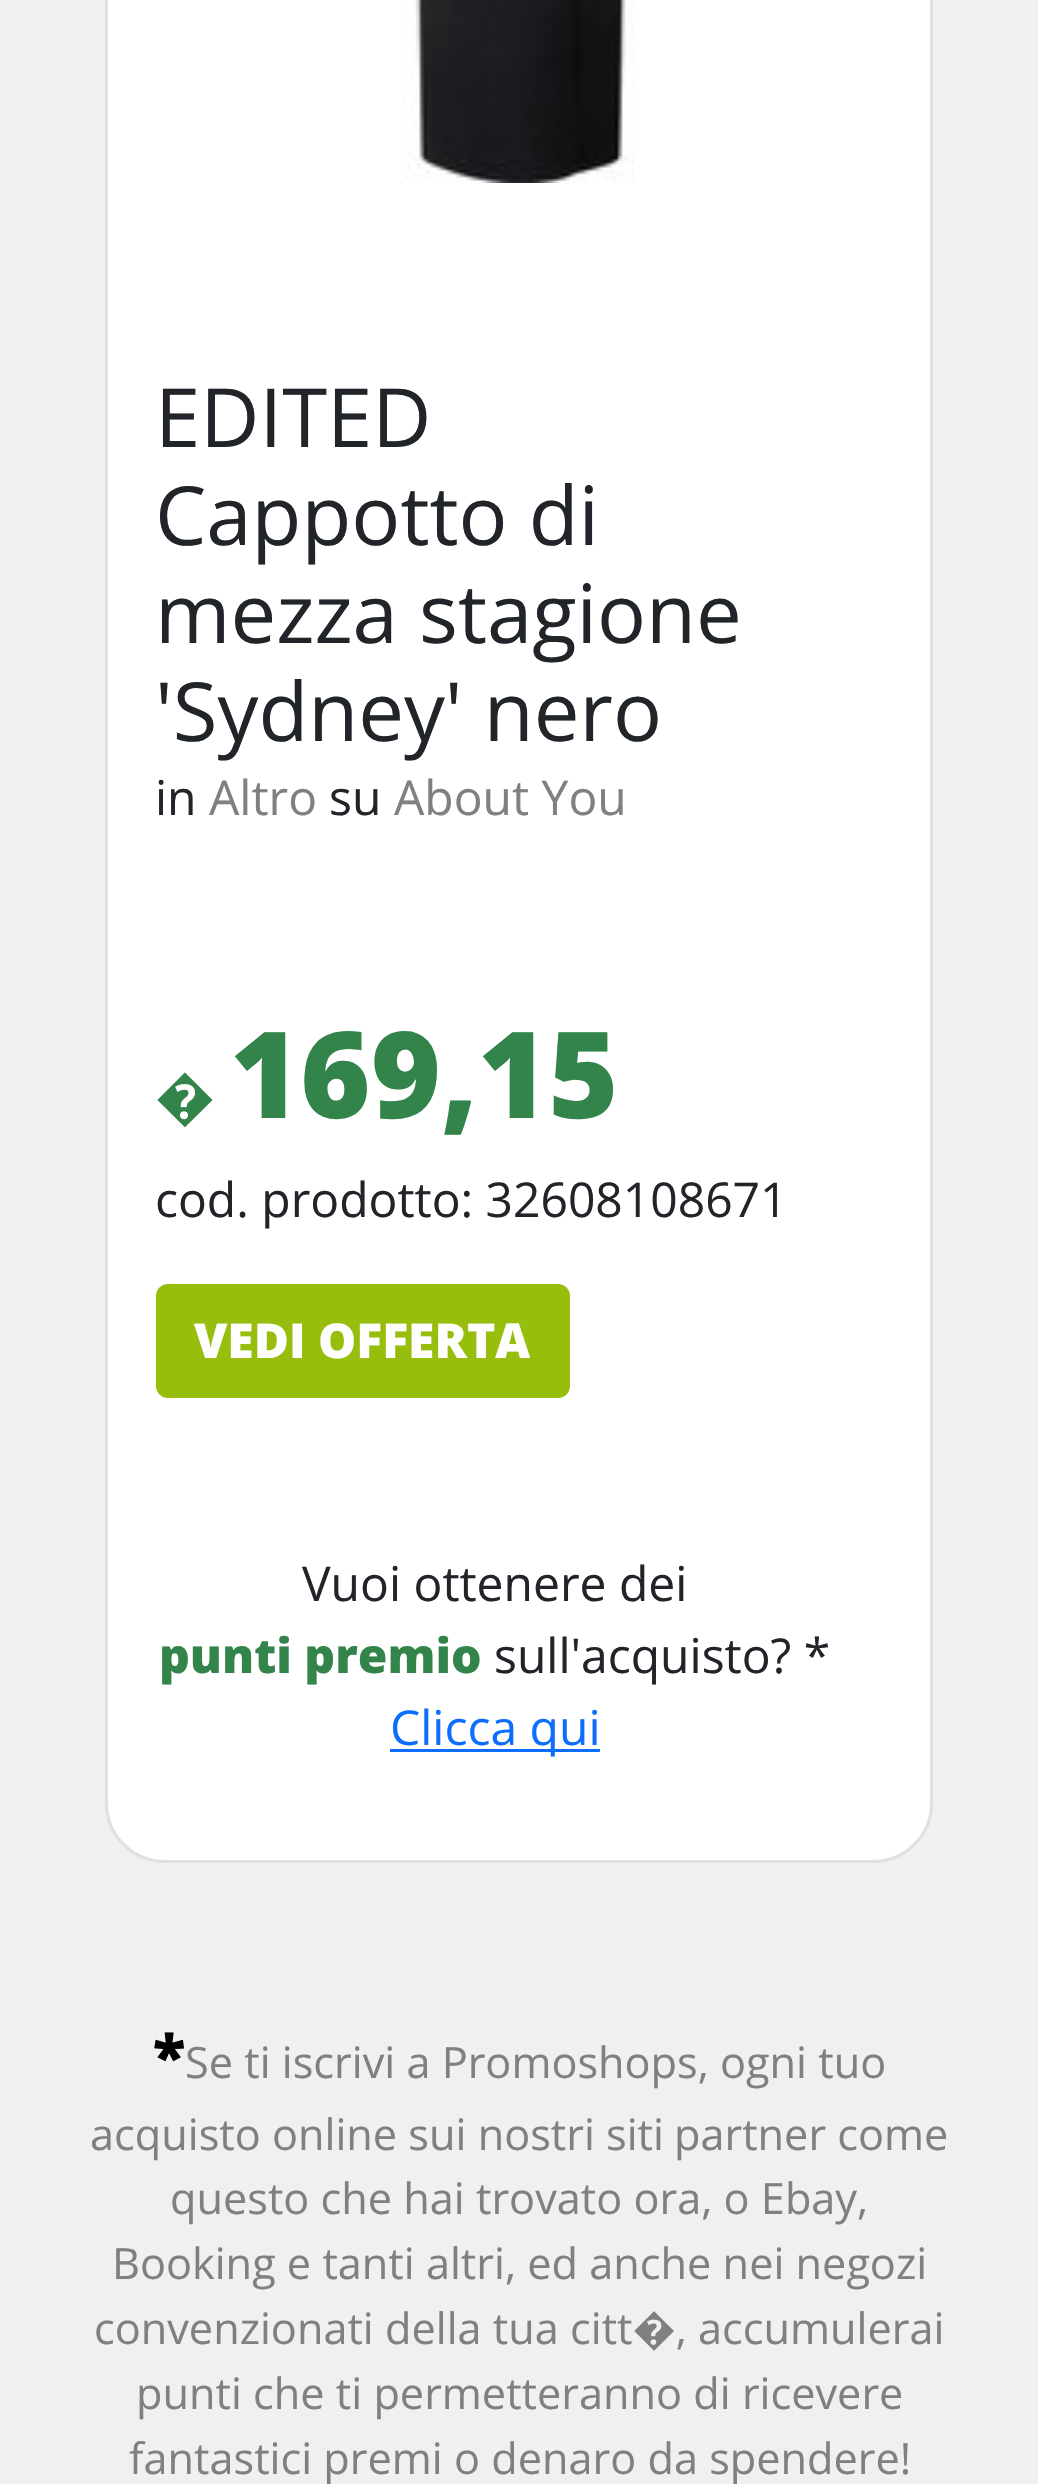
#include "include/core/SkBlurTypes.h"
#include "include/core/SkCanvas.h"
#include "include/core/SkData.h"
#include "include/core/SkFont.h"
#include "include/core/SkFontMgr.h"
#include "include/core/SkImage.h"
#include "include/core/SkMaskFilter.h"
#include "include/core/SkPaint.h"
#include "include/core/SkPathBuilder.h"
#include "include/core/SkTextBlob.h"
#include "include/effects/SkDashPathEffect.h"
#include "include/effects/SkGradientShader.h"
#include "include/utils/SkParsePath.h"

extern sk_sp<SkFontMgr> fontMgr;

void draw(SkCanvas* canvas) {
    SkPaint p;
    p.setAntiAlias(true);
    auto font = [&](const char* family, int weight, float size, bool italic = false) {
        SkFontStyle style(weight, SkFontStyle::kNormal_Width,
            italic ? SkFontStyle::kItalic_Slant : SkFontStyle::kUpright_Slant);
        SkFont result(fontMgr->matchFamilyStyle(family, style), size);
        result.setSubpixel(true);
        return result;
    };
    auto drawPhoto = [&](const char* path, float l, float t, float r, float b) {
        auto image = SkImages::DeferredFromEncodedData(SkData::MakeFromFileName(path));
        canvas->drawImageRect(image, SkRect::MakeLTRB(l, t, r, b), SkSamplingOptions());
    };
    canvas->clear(0xFFF0F0F0);
    p.setColor(0xFFFFFFFF);
    canvas->drawRoundRect(SkRect::MakeLTRB(105, -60, 933, 1863), 60, 60, p);
    p.setStyle(SkPaint::kStroke_Style);
    p.setStrokeWidth(3);
    p.setColor(0x1F000000);
    canvas->drawRoundRect(SkRect::MakeLTRB(106.5f, -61.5f, 931.5f, 1861.5f), 58.5f, 58.5f, p);
    drawPhoto("media/1.png", 401, 0, 635, 183);
    auto font1 = font("Open Sans", 400, 81.5f);
    p.setStyle(SkPaint::kFill_Style);
    p.setColor(0xFF212529);
    {
        const struct { const char* s; float x, y; } items[] = {
            {"EDITED", 155, 447},
            {"Cappotto di", 155, 545},
            {"mezza stagione", 155, 643},
            {"'Sydney' nero", 155, 741},
        };
        for (auto [s, x, y] : items) {
            canvas->drawString(s, x, y, font1, p);
        }
    }
    auto font2 = font("Open Sans", 400, 48);
    canvas->drawString("in", 155, 815, font2, p);
    p.setColor(0xFF808080);
    canvas->drawString("Altro", 209, 815, font2, p);
    p.setColor(0xFF212529);
    canvas->drawString("su", 329, 815, font2, p);
    p.setColor(0xFF808080);
    canvas->drawString("About You", 394, 815, font2, p);
    auto font3 = font("Open Sans", 400, 60);
    p.setColor(0xFF32844B);
    canvas->drawString("�", 155, 1118, font3, p);
    auto font4 = font("Open Sans", 800, 120);
    canvas->drawString("169,15", 230, 1118, font4, p);
    p.setColor(0xFF212529);
    canvas->drawString("cod. prodotto: 32608108671", 155, 1217, font2, p);
    p.setColor(0xFF97BE0D);
    canvas->drawRoundRect(SkRect::MakeLTRB(156, 1284, 570, 1398), 12, 12, p);
    auto font5 = font("Open Sans", 800, 48);
    p.setColor(0xFFFFFFFF);
    canvas->drawString("VEDI OFFERTA", 194, 1358, font5, p);
    p.setColor(0xFF212529);
    canvas->drawString("Vuoi ottenere dei", 302, 1601, font2, p);
    p.setColor(0xFF32844B);
    canvas->drawString("punti premio", 159, 1673, font5, p);
    p.setColor(0xFF212529);
    canvas->drawString("sull'acquisto? *", 494, 1673, font2, p);
    p.setColor(0xFF0D6EFD);
    canvas->drawRect(SkRect::MakeLTRB(390, 1749, 600, 1752), p);
    canvas->drawString("Clicca qui", 390, 1745, font2, p);
    auto font6 = font("Open Sans", 800, 60);
    p.setColor(0xFF000000);
    canvas->drawString("*", 153, 2078, font6, p);
    auto font7 = font("Open Sans", 400, 43.25f);
    p.setColor(0xFF808080);
    {
        const struct { const char* s; float x, y; } items[] = {
            {"Se ti iscrivi a Promoshops, ogni tuo", 185, 2078},
            {"acquisto online sui nostri siti", 90, 2150},
            {"partner come", 674, 2150},
            {"questo che hai trovato ora, o Ebay,", 170, 2214},
            {"Booking e tanti altri, ed anche nei negozi", 112, 2279},
            {"convenzionati della tua citt�,", 94, 2344},
            {"accumulerai", 698, 2344},
            {"punti che ti permetteranno di ricevere", 136, 2409},
            {"fantastici premi o denaro da spendere!", 129, 2474},
        };
        for (auto [s, x, y] : items) {
            canvas->drawString(s, x, y, font7, p);
        }
    }
}
